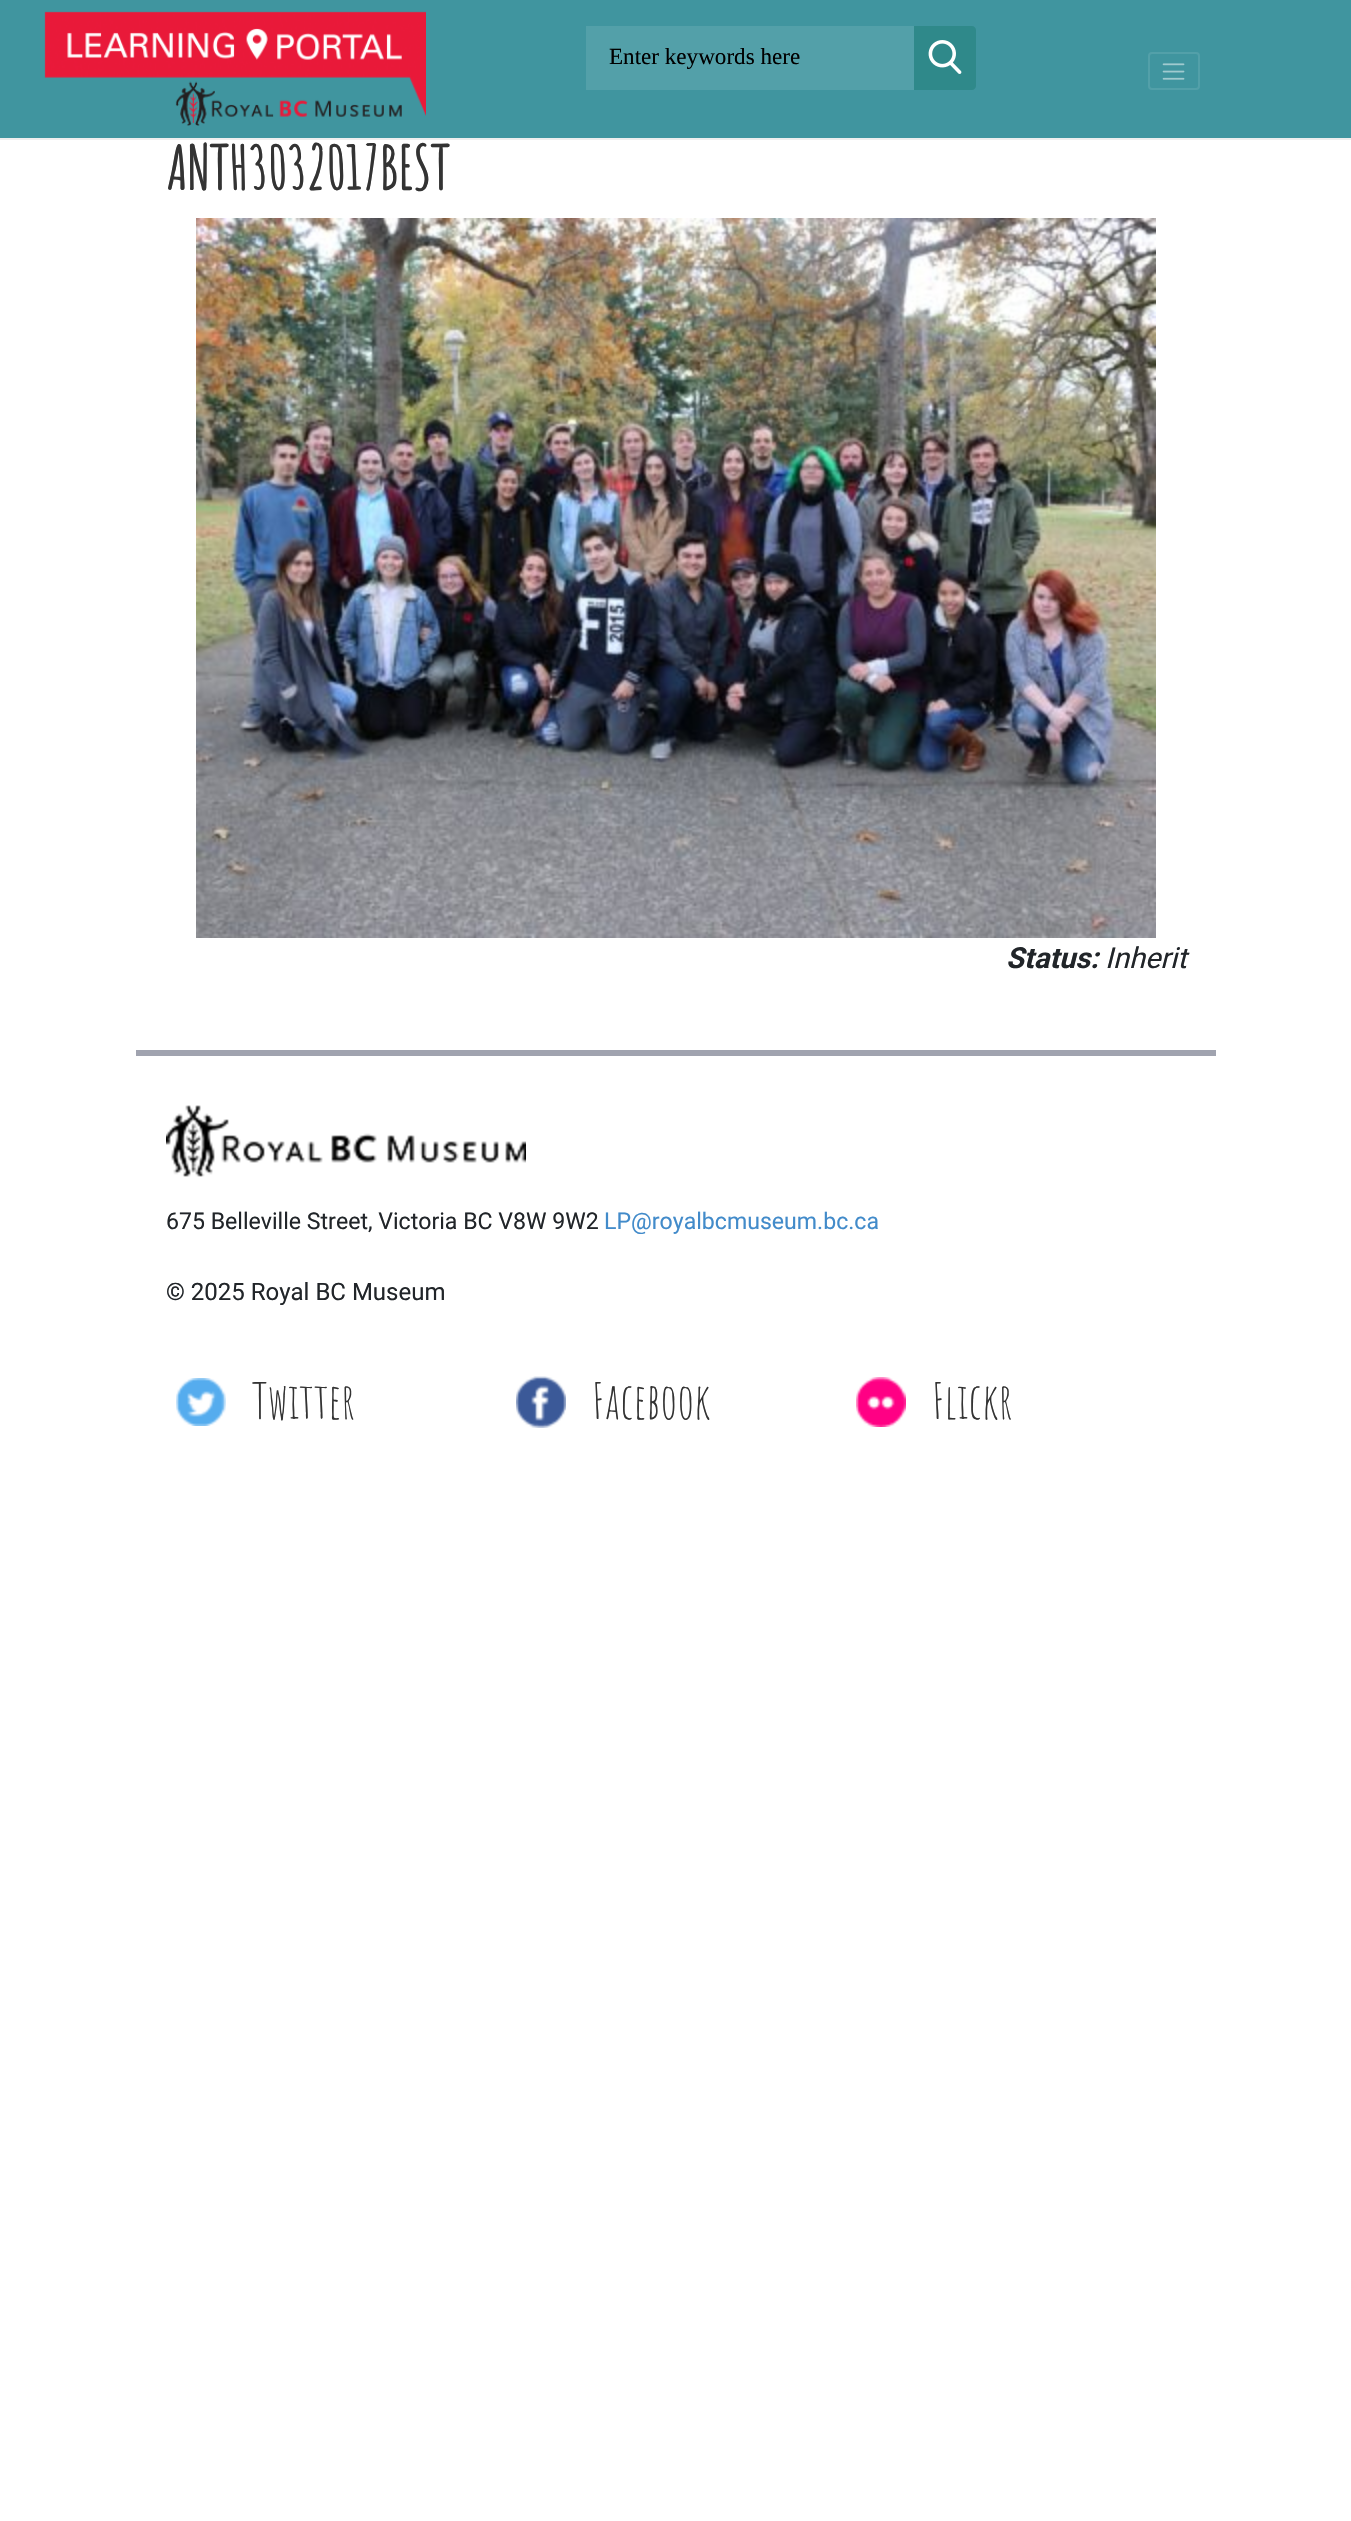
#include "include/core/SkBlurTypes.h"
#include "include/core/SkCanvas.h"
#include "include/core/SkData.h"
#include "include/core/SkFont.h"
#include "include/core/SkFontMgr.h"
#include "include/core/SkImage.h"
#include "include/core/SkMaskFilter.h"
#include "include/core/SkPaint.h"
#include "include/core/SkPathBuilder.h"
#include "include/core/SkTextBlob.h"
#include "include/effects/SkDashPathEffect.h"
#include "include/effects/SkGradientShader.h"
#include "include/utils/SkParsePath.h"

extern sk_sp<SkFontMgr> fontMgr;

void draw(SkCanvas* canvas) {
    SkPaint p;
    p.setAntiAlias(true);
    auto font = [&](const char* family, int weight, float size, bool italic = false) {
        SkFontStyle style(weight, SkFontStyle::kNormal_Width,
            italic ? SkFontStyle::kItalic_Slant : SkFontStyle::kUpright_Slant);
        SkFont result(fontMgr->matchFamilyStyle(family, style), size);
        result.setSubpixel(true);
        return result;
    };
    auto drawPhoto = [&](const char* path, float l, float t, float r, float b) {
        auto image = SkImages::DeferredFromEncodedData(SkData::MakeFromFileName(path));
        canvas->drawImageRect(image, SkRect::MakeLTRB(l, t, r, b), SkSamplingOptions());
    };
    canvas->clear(0xFFFFFFFF);
    p.setColor(0xFF40959F);
    canvas->drawRect(SkRect::MakeLTRB(0, 0, 1351, 138), p);
    p.setColor(0xFFEEEEEE);
    canvas->drawRect(SkRect::MakeLTRB(0, 138, 1351, 140), p);
    drawPhoto("media/1.png", 44, 11, 426, 126);
    p.setColor(0xFF53A0A9);
    canvas->drawRect(SkRect::MakeLTRB(586, 26, 914, 90), p);
    auto font1 = font("Liberation Serif", 400, 23.1f);
    p.setColor(0xFF000000);
    canvas->drawString("Enter keywords here", 609, 64, font1, p);
    p.setColor(0xFF2F898A);
    canvas->drawPath(SkPathBuilder().moveTo(914, 26).lineTo(972, 26).cubicTo(974, 26, 976, 28, 976, 30).lineTo(976, 86).cubicTo(976, 88, 974, 90, 972, 90).lineTo(914, 90).close().detach(), p);
    drawPhoto("media/2.png", 928, 40, 962, 74);
    p.setStyle(SkPaint::kStroke_Style);
    p.setStrokeWidth(2);
    p.setColor(0xFF53A0A9);
    canvas->drawRoundRect(SkRect::MakeLTRB(1149, 53, 1199, 89), 3, 3, p);
    drawPhoto("media/3.png", 1162, 63, 1185, 80);
    auto font2 = font("Amatic SC", 700, 59.25f);
    p.setStyle(SkPaint::kFill_Style);
    p.setColor(0xFF333333);
    canvas->drawString("ANTH3032017BEST", 166, 190, font2, p);
    drawPhoto("media/4.png", 196, 218, 1156, 938);
    auto font3 = font("Roboto", 700, 29, true);
    p.setColor(0xFF212529);
    canvas->drawString("Status:", 1006, 968, font3, p);
    auto font4 = font("Roboto", 400, 29, true);
    canvas->drawString("Inherit", 1105, 968, font4, p);
    p.setColor(0xFFA0A3AF);
    canvas->drawRect(SkRect::MakeLTRB(136, 1050, 1216, 1056), p);
    drawPhoto("media/5.png", 166, 1105, 526, 1177);
    auto font5 = font("Roboto", 400, 23.1f);
    p.setColor(0xFF212529);
    canvas->drawString("675 Belleville Street, Victoria BC V8W 9W2", 166, 1229, font5, p);
    p.setColor(0xFF428BCA);
    canvas->drawString("LP@royalbcmuseum.bc.ca", 604, 1229, font5, p);
    auto font6 = font("Roboto", 400, 24);
    p.setColor(0xFF212529);
    canvas->drawString("© 2025 Royal BC Museum", 166, 1300, font6, p);
    drawPhoto("media/6.png", 176, 1378, 226, 1426);
    auto font7 = font("Amatic SC", 400, 49);
    p.setColor(0xFF333333);
    canvas->drawString("Twitter", 252, 1419, font7, p);
    drawPhoto("media/7.png", 516, 1376, 566, 1428);
    canvas->drawString("Facebook", 592, 1419, font7, p);
    drawPhoto("media/8.png", 856, 1377, 906, 1427);
    canvas->drawString("Flickr", 932, 1419, font7, p);
}
